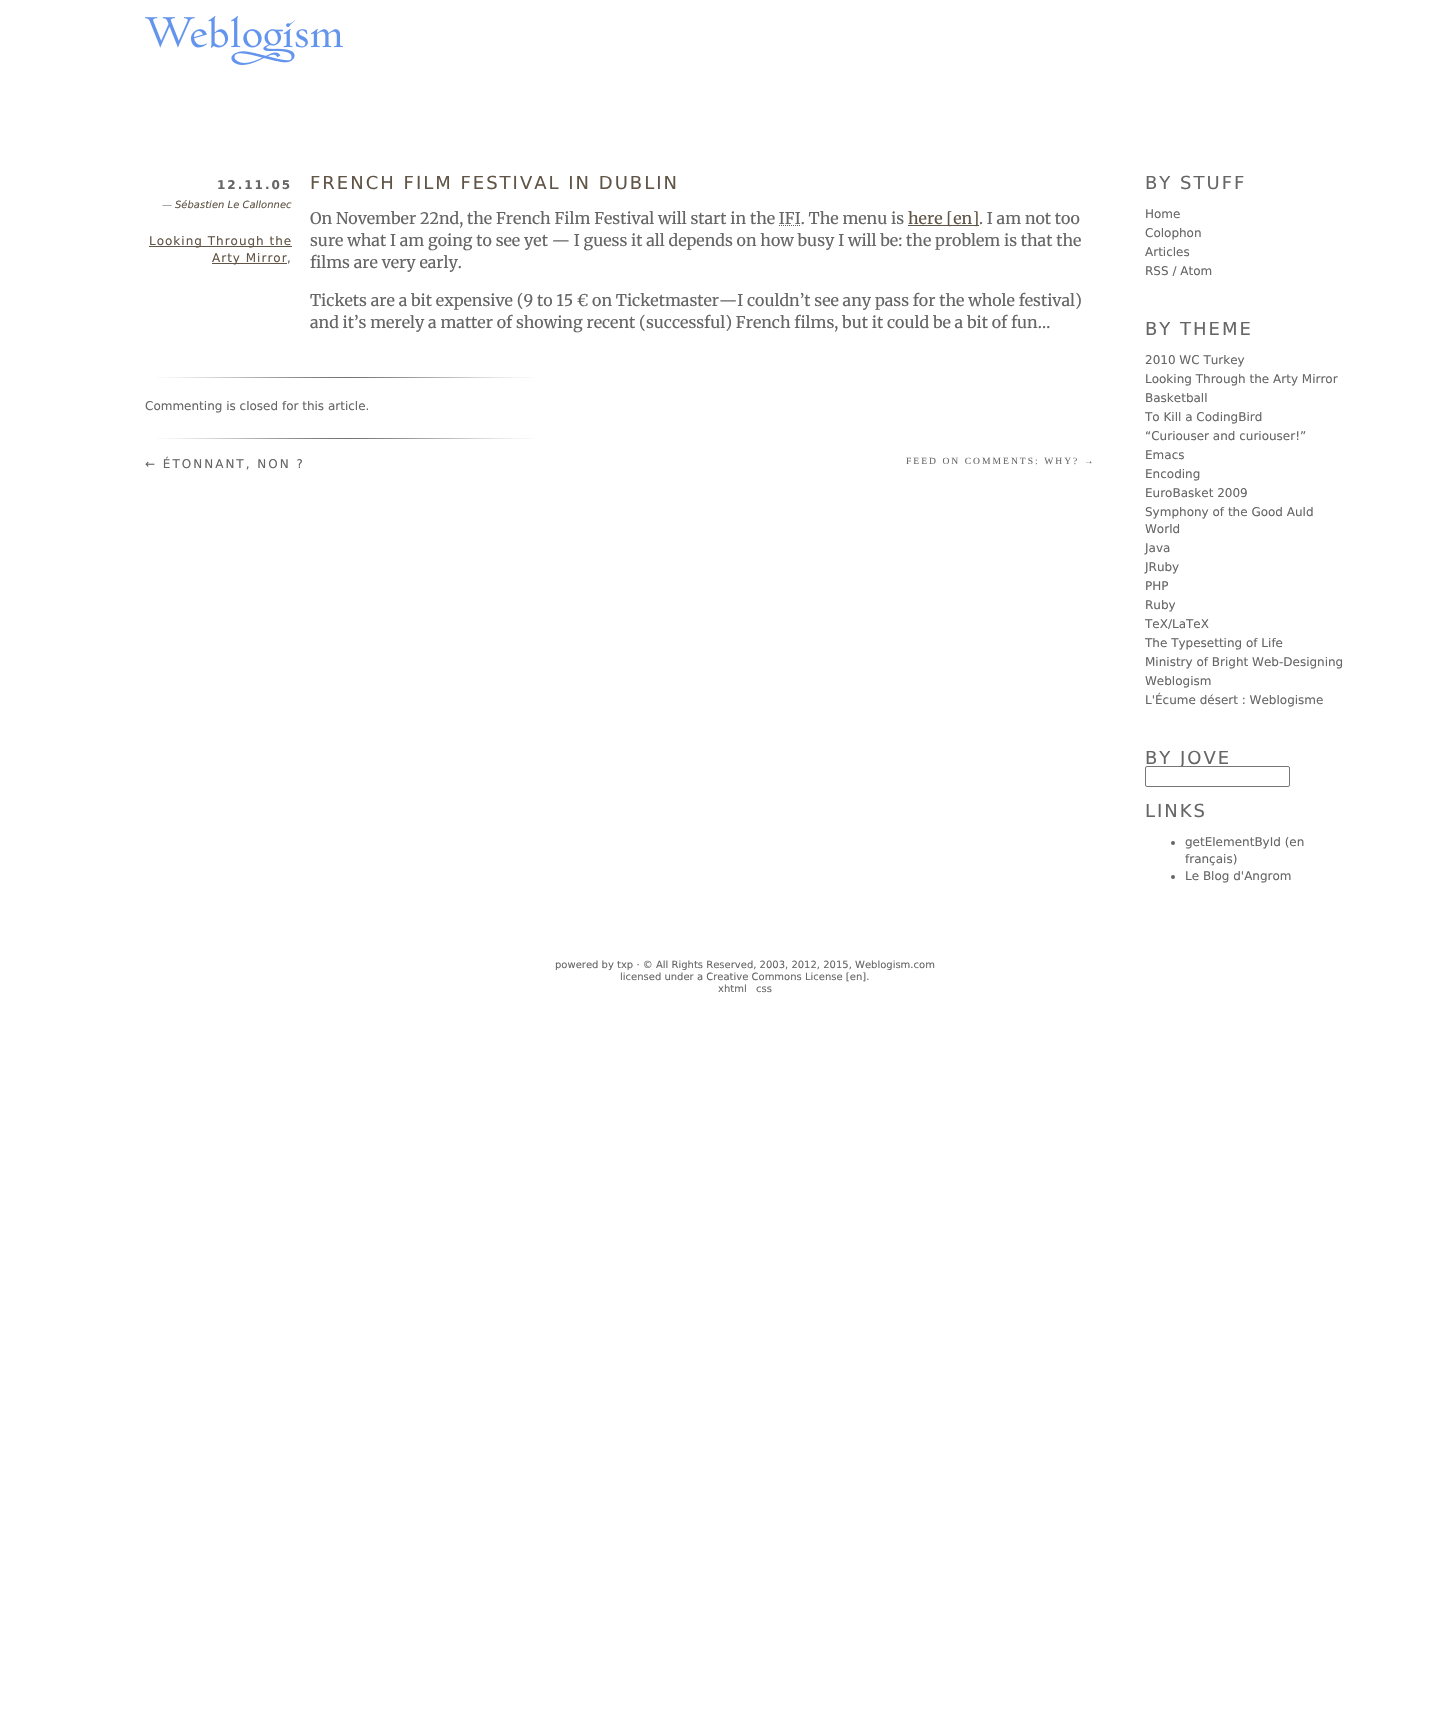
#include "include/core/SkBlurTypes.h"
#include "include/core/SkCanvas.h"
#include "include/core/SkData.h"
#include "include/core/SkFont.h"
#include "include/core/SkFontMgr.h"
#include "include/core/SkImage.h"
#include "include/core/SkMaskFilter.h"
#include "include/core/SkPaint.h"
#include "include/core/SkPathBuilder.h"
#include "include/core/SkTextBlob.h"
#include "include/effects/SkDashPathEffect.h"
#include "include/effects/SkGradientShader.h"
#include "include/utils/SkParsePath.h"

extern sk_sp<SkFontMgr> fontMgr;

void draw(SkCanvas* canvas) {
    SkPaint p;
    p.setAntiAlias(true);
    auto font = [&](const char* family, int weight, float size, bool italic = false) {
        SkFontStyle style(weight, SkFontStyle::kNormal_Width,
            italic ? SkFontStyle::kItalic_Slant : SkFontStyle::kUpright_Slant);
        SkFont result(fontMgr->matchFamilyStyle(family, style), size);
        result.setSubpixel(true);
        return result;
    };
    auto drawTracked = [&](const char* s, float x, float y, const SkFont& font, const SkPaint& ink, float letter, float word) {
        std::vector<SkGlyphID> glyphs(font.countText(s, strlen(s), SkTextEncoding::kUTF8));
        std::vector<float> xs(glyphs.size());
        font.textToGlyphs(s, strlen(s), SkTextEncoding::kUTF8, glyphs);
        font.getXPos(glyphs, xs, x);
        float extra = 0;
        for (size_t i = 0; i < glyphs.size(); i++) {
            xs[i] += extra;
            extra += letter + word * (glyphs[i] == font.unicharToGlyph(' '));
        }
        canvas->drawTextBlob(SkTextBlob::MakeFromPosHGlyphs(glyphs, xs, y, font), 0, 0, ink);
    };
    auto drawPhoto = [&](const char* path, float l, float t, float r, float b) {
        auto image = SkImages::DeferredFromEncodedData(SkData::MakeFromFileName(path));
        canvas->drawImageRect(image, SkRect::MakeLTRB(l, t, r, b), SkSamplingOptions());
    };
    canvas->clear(0xFFFFFFFF);
    auto font1 = font("DejaVu Sans", 700, 12);
    p.setColor(0xFF666666);
    drawTracked("12.11.05", 217, 189, font1, p, 2, 0);
    auto font2 = font("DejaVu Sans", 400, 10, true);
    canvas->drawString("—", 162, 208, font2, p);
    p.setColor(0xFF615547);
    canvas->drawString("Sébastien Le Callonnec", 175, 208, font2, p);
    canvas->drawRect(SkRect::MakeLTRB(149, 246, 292, 247), p);
    auto font3 = font("DejaVu Sans", 400, 12);
    drawTracked("Looking Through the", 149, 245, font3, p, 1, 0);
    canvas->drawRect(SkRect::MakeLTRB(212, 263, 287, 264), p);
    drawTracked("Arty Mirror", 212, 262, font3, p, 1, 0);
    p.setColor(0xFF666666);
    drawTracked(",", 287, 262, font3, p, 1, 0);
    auto font4 = font("DejaVu Sans", 400, 18);
    p.setColor(0xFF615547);
    drawTracked("FRENCH FILM FESTIVAL IN DUBLIN", 310, 189, font4, p, 2, 0);
    auto font5 = font("Merriweather", 300, 16);
    p.setColor(0xFF666666);
    canvas->drawString("On November 22nd, the French Film Festival will start in the IFI. The menu is", 310, 224, font5, p);
    p.setColor(0xFF615547);
    canvas->drawRect(SkRect::MakeLTRB(908, 225, 979, 226), p);
    canvas->drawString("here [en]", 908, 224, font5, p);
    p.setColor(0xFF666666);
    canvas->drawString(". I am not too", 979, 224, font5, p);
    p.setStyle(SkPaint::kStroke_Style);
    p.setStrokeWidth(1);
    p.setPathEffect(SkDashPathEffect::Make({{1, 1}}, 0));
    canvas->drawPath(SkPathBuilder().moveTo(779, 225.5f).lineTo(800.5f, 225.5f).detach(), p);
    p.setPathEffect(nullptr);
    p.setStyle(SkPaint::kFill_Style);
    {
        const struct { const char* s; float x, y; } items[] = {
            {"sure what I am going to see yet — I guess it all depends on how busy I will be: the problem is that the", 310, 246},
            {"films are very early.", 310, 268},
            {"Tickets are a bit expensive (9 to 15 € on Ticketmaster—I couldn’t see any pass for the whole festival)", 310, 306},
            {"and it’s merely a matter of showing recent (successful) French films, but it could be a bit of fun…", 310, 328},
        };
        for (auto [s, x, y] : items) {
            canvas->drawString(s, x, y, font5, p);
        }
    }
    drawPhoto("media/1.png", 156, 377, 533, 378);
    canvas->drawString("Commenting is closed for this article.", 145, 410, font3, p);
    drawPhoto("media/1.png", 156, 438, 533, 439);
    drawTracked("← ÉTONNANT, NON ?", 145, 468, font3, p, 2, 0);
    auto font6 = font("Liberation Serif", 400, 9.6f);
    drawTracked("FEED ON COMMENTS: WHY? →", 906, 464, font6, p, 2, 0);
    drawPhoto("media/2.png", 145, 16, 343, 65);
    drawTracked("BY STUFF", 1145, 189, font4, p, 2, 0);
    {
        const struct { const char* s; float x, y; } items[] = {
            {"Home", 1145, 218},
            {"Colophon", 1145, 237},
            {"Articles", 1145, 256},
            {"RSS / Atom", 1145, 275},
        };
        for (auto [s, x, y] : items) {
            canvas->drawString(s, x, y, font3, p);
        }
    }
    drawTracked("BY THEME", 1145, 335, font4, p, 2, 0);
    {
        const struct { const char* s; float x, y; } items[] = {
            {"2010 WC Turkey", 1145, 364},
            {"Looking Through the Arty Mirror", 1145, 383},
            {"Basketball", 1145, 402},
            {"To Kill a CodingBird", 1145, 421},
            {"“Curiouser and curiouser!”", 1145, 440},
            {"Emacs", 1145, 459},
            {"Encoding", 1145, 478},
            {"EuroBasket 2009", 1145, 497},
            {"Symphony of the Good Auld", 1145, 516},
            {"World", 1145, 533},
            {"Java", 1145, 552},
            {"JRuby", 1145, 571},
            {"PHP", 1145, 590},
            {"Ruby", 1145, 609},
            {"TeX/LaTeX", 1145, 628},
            {"The Typesetting of Life", 1145, 647},
            {"Ministry of Bright Web-Designing", 1145, 666},
            {"Weblogism", 1145, 685},
            {"L'Écume désert : Weblogisme", 1145, 704},
        };
        for (auto [s, x, y] : items) {
            canvas->drawString(s, x, y, font3, p);
        }
    }
    drawTracked("BY JOVE", 1145, 764, font4, p, 2, 0);
    p.setColor(0xFFFFFFFF);
    canvas->drawRoundRect(SkRect::MakeLTRB(1145.5f, 766.5f, 1289.5f, 786.5f), 1.5f, 1.5f, p);
    p.setStyle(SkPaint::kStroke_Style);
    p.setColor(0xFF767676);
    canvas->drawRoundRect(SkRect::MakeLTRB(1145.5f, 766.5f, 1289.5f, 786.5f), 1.5f, 1.5f, p);
    p.setStyle(SkPaint::kFill_Style);
    p.setColor(0xFF666666);
    drawTracked("LINKS", 1145, 817, font4, p, 2, 0);
    canvas->drawCircle(1173, 843, 2, p);
    canvas->drawString("getElementById (en", 1185, 846, font3, p);
    canvas->drawString("français)", 1185, 863, font3, p);
    canvas->drawCircle(1173, 877, 2, p);
    canvas->drawString("Le Blog d'Angrom", 1185, 880, font3, p);
    auto font7 = font("DejaVu Sans", 400, 10);
    {
        const struct { const char* s; float x, y; } items[] = {
            {"powered by txp · © All Rights Reserved, 2003, 2012, 2015, Weblogism.com", 555, 968},
            {"licensed under a Creative Commons License [en].", 620, 980},
            {"xhtml", 718, 992},
            {"css", 756, 992},
        };
        for (auto [s, x, y] : items) {
            canvas->drawString(s, x, y, font7, p);
        }
    }
}
